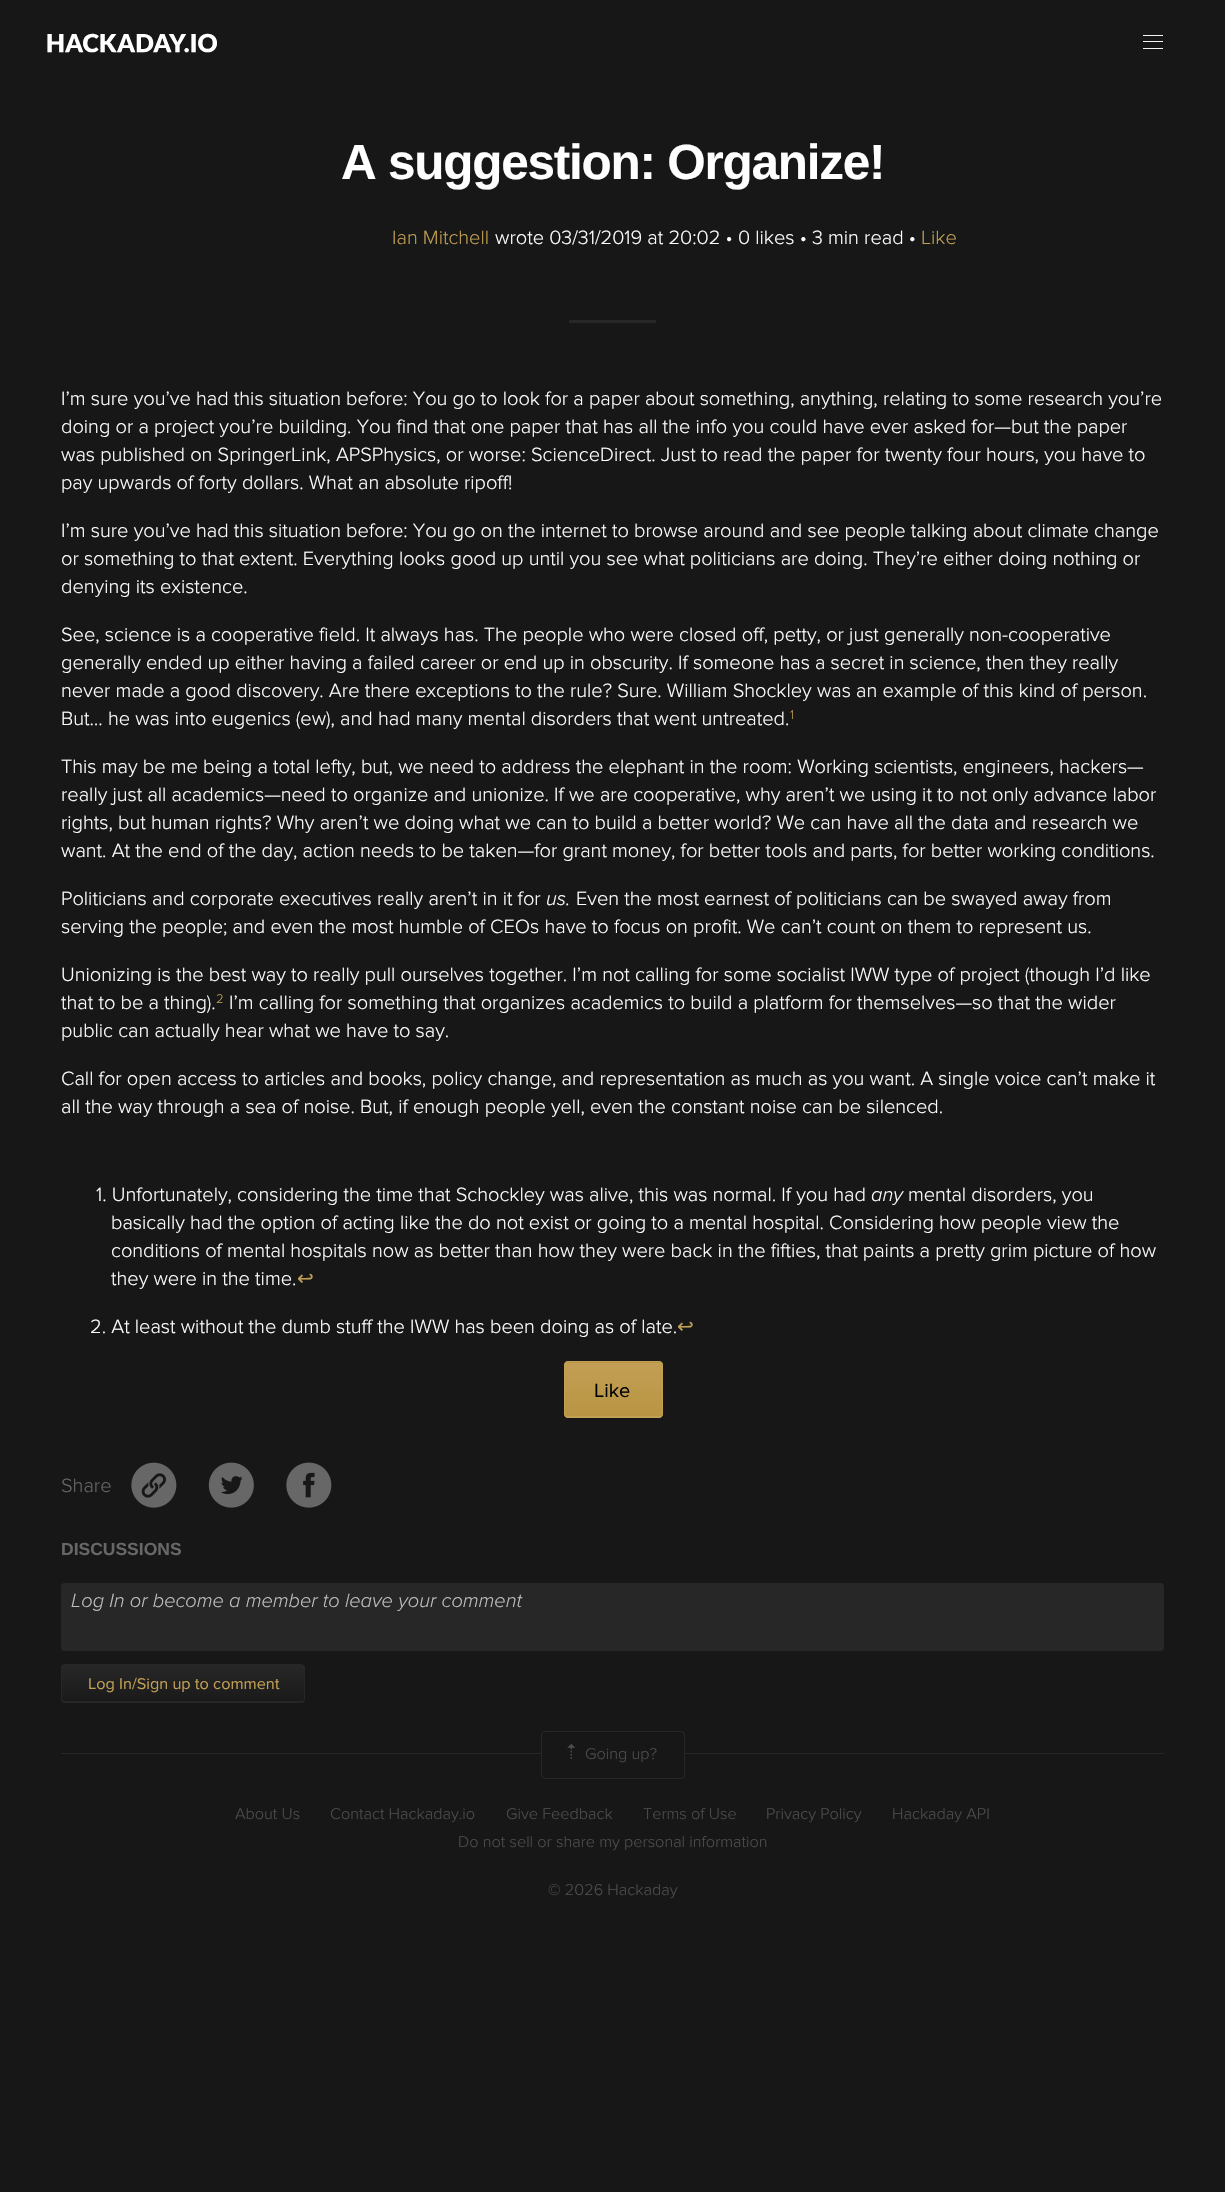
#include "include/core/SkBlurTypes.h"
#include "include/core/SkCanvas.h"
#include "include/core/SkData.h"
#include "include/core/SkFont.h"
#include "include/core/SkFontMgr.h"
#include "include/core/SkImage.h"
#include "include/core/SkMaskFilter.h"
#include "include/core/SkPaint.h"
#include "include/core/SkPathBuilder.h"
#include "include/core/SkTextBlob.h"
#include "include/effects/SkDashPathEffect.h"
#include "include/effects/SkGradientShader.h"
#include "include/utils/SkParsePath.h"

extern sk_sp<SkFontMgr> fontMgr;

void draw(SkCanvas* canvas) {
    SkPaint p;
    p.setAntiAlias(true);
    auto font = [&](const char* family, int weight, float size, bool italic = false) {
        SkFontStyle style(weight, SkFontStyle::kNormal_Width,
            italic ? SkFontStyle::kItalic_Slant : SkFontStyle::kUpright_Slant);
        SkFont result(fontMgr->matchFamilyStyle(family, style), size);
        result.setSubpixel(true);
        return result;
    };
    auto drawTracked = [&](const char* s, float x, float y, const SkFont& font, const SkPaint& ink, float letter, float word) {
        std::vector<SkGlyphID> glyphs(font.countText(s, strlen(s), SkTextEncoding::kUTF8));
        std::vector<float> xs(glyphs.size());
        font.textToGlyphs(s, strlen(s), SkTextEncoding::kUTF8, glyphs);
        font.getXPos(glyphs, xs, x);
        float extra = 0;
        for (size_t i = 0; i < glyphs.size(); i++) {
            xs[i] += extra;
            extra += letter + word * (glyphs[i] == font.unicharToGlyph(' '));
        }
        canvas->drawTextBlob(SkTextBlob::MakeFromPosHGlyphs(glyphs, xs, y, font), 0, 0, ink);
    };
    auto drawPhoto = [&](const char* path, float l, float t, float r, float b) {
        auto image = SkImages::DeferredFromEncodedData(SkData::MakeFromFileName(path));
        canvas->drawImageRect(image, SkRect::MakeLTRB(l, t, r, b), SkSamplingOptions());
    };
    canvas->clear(0xFF171717);
    drawPhoto("media/1.png", 47, 33, 217, 53);
    {
        const struct { float l, t, r, b; SkColor color; } items[] = {
            {1143, 35, 1163, 36, 0xFFF5F5F5},
            {1143, 41, 1163, 42, 0xFFF5F5F5},
            {1143, 48, 1163, 49, 0xFFF5F5F5},
        };
        for (auto [l, t, r, b, color] : items) {
            p.setColor(color);
            canvas->drawRect(SkRect::MakeLTRB(l, t, r, b), p);
        }
    }
    auto font1 = font("Liberation Sans", 700, 49.5f);
    p.setColor(0xFFFFFFFF);
    drawTracked("A suggestion: Organize!", 341, 179, font1, p, -1.25f, 0);
    auto font2 = font("Proxima Nova", 300, 20);
    p.setColor(0xFFC19F54);
    canvas->drawString("Ian Mitchell", 392, 244, font2, p);
    p.setColor(0xFFFFFFFF);
    canvas->drawString("wrote 03/31/2019 at 20:02 • 0 likes • 3 min read •", 495, 244, font2, p);
    p.setColor(0xFFC19F54);
    canvas->drawString("Like", 921, 244, font2, p);
    p.setColor(0xFF272727);
    canvas->drawRect(SkRect::MakeLTRB(569, 320, 656, 323), p);
    p.setColor(0xFFFFFFFF);
    {
        const struct { const char* s; float x, y; } items[] = {
            {"I’m sure you’ve had this situation before: You go to look for a paper about something, anything, relating to some research you’re", 61, 405},
            {"doing or a project you’re building. You find that one paper that has all the info you could have ever asked for—but the paper", 61, 433},
            {"was published on SpringerLink, APSPhysics, or worse: ScienceDirect. Just to read the paper for twenty four hours, you have to", 61, 461},
            {"pay upwards of forty dollars. What an absolute ripoff!", 61, 489},
            {"I’m sure you’ve had this situation before: You go on the internet to browse around and see people talking about climate change", 61, 537},
            {"or something to that extent. Everything looks good up until you see what politicians are doing. They’re either doing nothing or", 61, 565},
            {"denying its existence.", 61, 593},
            {"See, science is a cooperative field. It always has. The people who were closed off, petty, or just generally non-cooperative", 61, 641},
            {"generally ended up either having a failed career or end up in obscurity. If someone has a secret in science, then they really", 61, 669},
            {"never made a good discovery. Are there exceptions to the rule? Sure. William Shockley was an example of this kind of person.", 61, 697},
            {"But… he was into eugenics (ew), and had many mental disorders that went untreated.", 61, 725},
        };
        for (auto [s, x, y] : items) {
            canvas->drawString(s, x, y, font2, p);
        }
    }
    auto font3 = font("Proxima Nova", 300, 13);
    p.setColor(0xFFC19F54);
    canvas->drawString("1", 790, 719, font3, p);
    p.setColor(0xFFFFFFFF);
    {
        const struct { const char* s; float x, y; } items[] = {
            {"This may be me being a total lefty, but, we need to address the elephant in the room: Working scientists, engineers, hackers—", 61, 773},
            {"really just all academics—need to organize and unionize. If we are cooperative, why aren’t we using it to not only advance labor", 61, 801},
            {"rights, but human rights? Why aren’t we doing what we can to build a better world? We can have all the data and research we", 61, 829},
            {"want. At the end of the day, action needs to be taken—for grant money, for better tools and parts, for better working conditions.", 61, 857},
            {"Politicians and corporate executives really aren’t in it for", 61, 905},
        };
        for (auto [s, x, y] : items) {
            canvas->drawString(s, x, y, font2, p);
        }
    }
    auto font4 = font("Proxima Nova", 300, 20, true);
    canvas->drawString("us.", 546, 905, font4, p);
    {
        const struct { const char* s; float x, y; } items[] = {
            {"Even the most earnest of politicians can be swayed away from", 576, 905},
            {"serving the people; and even the most humble of CEOs have to focus on profit. We can’t count on them to represent us.", 61, 933},
            {"Unionizing is the best way to really pull ourselves together. I’m not calling for some socialist IWW type of project (though I’d like", 61, 981},
            {"that to be a thing).", 61, 1009},
        };
        for (auto [s, x, y] : items) {
            canvas->drawString(s, x, y, font2, p);
        }
    }
    p.setColor(0xFFC19F54);
    canvas->drawString("2", 216, 1003, font3, p);
    p.setColor(0xFFFFFFFF);
    {
        const struct { const char* s; float x, y; } items[] = {
            {"I’m calling for something that organizes academics to build a platform for themselves—so that the wider", 229, 1009},
            {"public can actually hear what we have to say.", 61, 1037},
            {"Call for open access to articles and books, policy change, and representation as much as you want. A single voice can’t make it", 61, 1085},
            {"all the way through a sea of noise. But, if enough people yell, even the constant noise can be silenced.", 61, 1113},
            {"1. Unfortunately, considering the time that Schockley was alive, this was normal. If you had", 96, 1201},
        };
        for (auto [s, x, y] : items) {
            canvas->drawString(s, x, y, font2, p);
        }
    }
    canvas->drawString("any", 871, 1201, font4, p);
    {
        const struct { const char* s; float x, y; } items[] = {
            {"mental disorders, you", 908, 1201},
            {"basically had the option of acting like the do not exist or going to a mental hospital. Considering how people view the", 111, 1229},
            {"conditions of mental hospitals now as better than how they were back in the fifties, that paints a pretty grim picture of how", 111, 1257},
            {"they were in the time.", 111, 1285},
        };
        for (auto [s, x, y] : items) {
            canvas->drawString(s, x, y, font2, p);
        }
    }
    auto font5 = font("DejaVu Sans", 400, 20);
    p.setColor(0xFFC19F54);
    canvas->drawString("↩", 297, 1285, font5, p);
    p.setColor(0xFFFFFFFF);
    canvas->drawString("2. At least without the dumb stuff the IWW has been doing as of late.", 90, 1333, font2, p);
    p.setColor(0xFFC19F54);
    canvas->drawString("↩", 677, 1333, font5, p);
    canvas->save();
    canvas->clipPath(SkPathBuilder().moveTo(568, 1361).lineTo(659, 1361).cubicTo(661, 1361, 663, 1363, 663, 1365).lineTo(663, 1414).cubicTo(663, 1416, 661, 1418, 659, 1418).lineTo(568, 1418).cubicTo(566, 1418, 564, 1416, 564, 1414).lineTo(564, 1365).cubicTo(564, 1363, 566, 1361, 568, 1361).close().detach(), true);
    {
        const SkColor colors[] = {0xFFC19F54, 0xFFB99443};
        const float stops[] = {0, 1};
        const SkPoint ends[] = {{613, 1309}, {613, 1363}};
        p.setShader(SkGradientShader::MakeLinear(ends, colors, stops, 2, SkTileMode::kClamp));
        p.setAlpha(255);
    }
    canvas->drawRect(SkRect::MakeLTRB(564, 1361, 663, 1363), p);
    {
        const SkColor colors[] = {0xFFC19F54, 0xFFB99443};
        const float stops[] = {0, 1};
        const SkPoint ends[] = {{613, 1363}, {613, 1416}};
        p.setShader(SkGradientShader::MakeLinear(ends, colors, stops, 2, SkTileMode::kClamp));
        p.setAlpha(255);
    }
    canvas->drawRect(SkRect::MakeLTRB(564, 1363, 663, 1416), p);
    {
        const SkColor colors[] = {0xFFC19F54, 0xFFB99443};
        const float stops[] = {0, 1};
        const SkPoint ends[] = {{613, 1416}, {613, 1470}};
        p.setShader(SkGradientShader::MakeLinear(ends, colors, stops, 2, SkTileMode::kClamp));
        p.setAlpha(255);
    }
    canvas->drawRect(SkRect::MakeLTRB(564, 1416, 663, 1418), p);
    canvas->restore();
    p.setStyle(SkPaint::kStroke_Style);
    p.setStrokeWidth(1);
    p.setShader(nullptr);
    p.setColor(0xFFC19F54);
    canvas->drawRoundRect(SkRect::MakeLTRB(564.5f, 1361.5f, 662.5f, 1417.5f), 3.5f, 3.5f, p);
    auto font6 = font("Proxima Nova", 400, 20);
    p.setStyle(SkPaint::kFill_Style);
    p.setColor(0xFF000000);
    canvas->drawString("Like", 594, 1397, font6, p);
    p.setColor(0xFF676767);
    canvas->drawString("Share", 61, 1492, font2, p);
    drawPhoto("media/2.png", 131, 1462, 177, 1508);
    drawPhoto("media/3.png", 208, 1462, 254, 1508);
    drawPhoto("media/4.png", 286, 1462, 332, 1508);
    auto font7 = font("Liberation Sans", 700, 17.5f);
    canvas->drawString("DISCUSSIONS", 61, 1555, font7, p);
    p.setColor(0xFF272727);
    canvas->drawRoundRect(SkRect::MakeLTRB(61, 1583, 1164, 1651), 4, 4, p);
    p.setColor(0xFFBFBFBF);
    canvas->drawString("Log In or become a member to leave your comment", 71, 1607, font4, p);
    canvas->save();
    canvas->clipPath(SkPathBuilder().moveTo(65, 1664).lineTo(301, 1664).cubicTo(303, 1664, 305, 1666, 305, 1668).lineTo(305, 1699).cubicTo(305, 1701, 303, 1703, 301, 1703).lineTo(65, 1703).cubicTo(63, 1703, 61, 1701, 61, 1699).lineTo(61, 1668).cubicTo(61, 1666, 63, 1664, 65, 1664).close().detach(), true);
    {
        const SkColor colors[] = {0xFF272727, 0xFF1A1A1A};
        const float stops[] = {0, 1};
        const SkPoint ends[] = {{183, 1665}, {183, 1701}};
        p.setShader(SkGradientShader::MakeLinear(ends, colors, stops, 2, SkTileMode::kClamp));
        p.setAlpha(255);
    }
    canvas->drawRect(SkRect::MakeLTRB(61, 1665, 305, 1701), p);
    {
        const SkColor colors[] = {0xFF272727, 0xFF1A1A1A};
        const float stops[] = {0, 1};
        const SkPoint ends[] = {{183, 1701}, {183, 1738}};
        p.setShader(SkGradientShader::MakeLinear(ends, colors, stops, 2, SkTileMode::kClamp));
        p.setAlpha(255);
    }
    canvas->drawRect(SkRect::MakeLTRB(61, 1701, 305, 1703), p);
    canvas->restore();
    p.setStyle(SkPaint::kStroke_Style);
    p.setShader(nullptr);
    p.setColor(0xFF272727);
    canvas->drawRoundRect(SkRect::MakeLTRB(61.5f, 1664.5f, 304.5f, 1702.5f), 3.5f, 3.5f, p);
    auto font8 = font("Proxima Nova", 400, 16.25f);
    p.setStyle(SkPaint::kFill_Style);
    p.setColor(0xFFC19F54);
    canvas->drawString("Log In/Sign up to comment", 88, 1689, font8, p);
    p.setColor(0xFF272727);
    canvas->drawRect(SkRect::MakeLTRB(61, 1753, 1164, 1754), p);
    p.setColor(0xFF171717);
    canvas->drawRoundRect(SkRect::MakeLTRB(541.5f, 1731.5f, 684.5f, 1778.5f), 3.5f, 3.5f, p);
    p.setStyle(SkPaint::kStroke_Style);
    p.setColor(0xFF272727);
    canvas->drawRoundRect(SkRect::MakeLTRB(541.5f, 1731.5f, 684.5f, 1778.5f), 3.5f, 3.5f, p);
    drawPhoto("media/5.png", 567, 1744, 575, 1759);
    auto font9 = font("Proxima Nova", 300, 16.25f);
    p.setStyle(SkPaint::kFill_Style);
    p.setColor(0xFF4D4D4D);
    {
        const struct { const char* s; float x, y; } items[] = {
            {"Going up?", 585, 1759},
            {"About Us", 235, 1819},
            {"Contact Hackaday.io", 330, 1819},
            {"Give Feedback", 506, 1819},
            {"Terms of Use", 643, 1819},
            {"Privacy Policy", 766, 1819},
            {"Hackaday API", 892, 1819},
            {"Do not sell or share my personal information", 458, 1847},
            {"© 2026 Hackaday", 548, 1895},
        };
        for (auto [s, x, y] : items) {
            canvas->drawString(s, x, y, font9, p);
        }
    }
}
